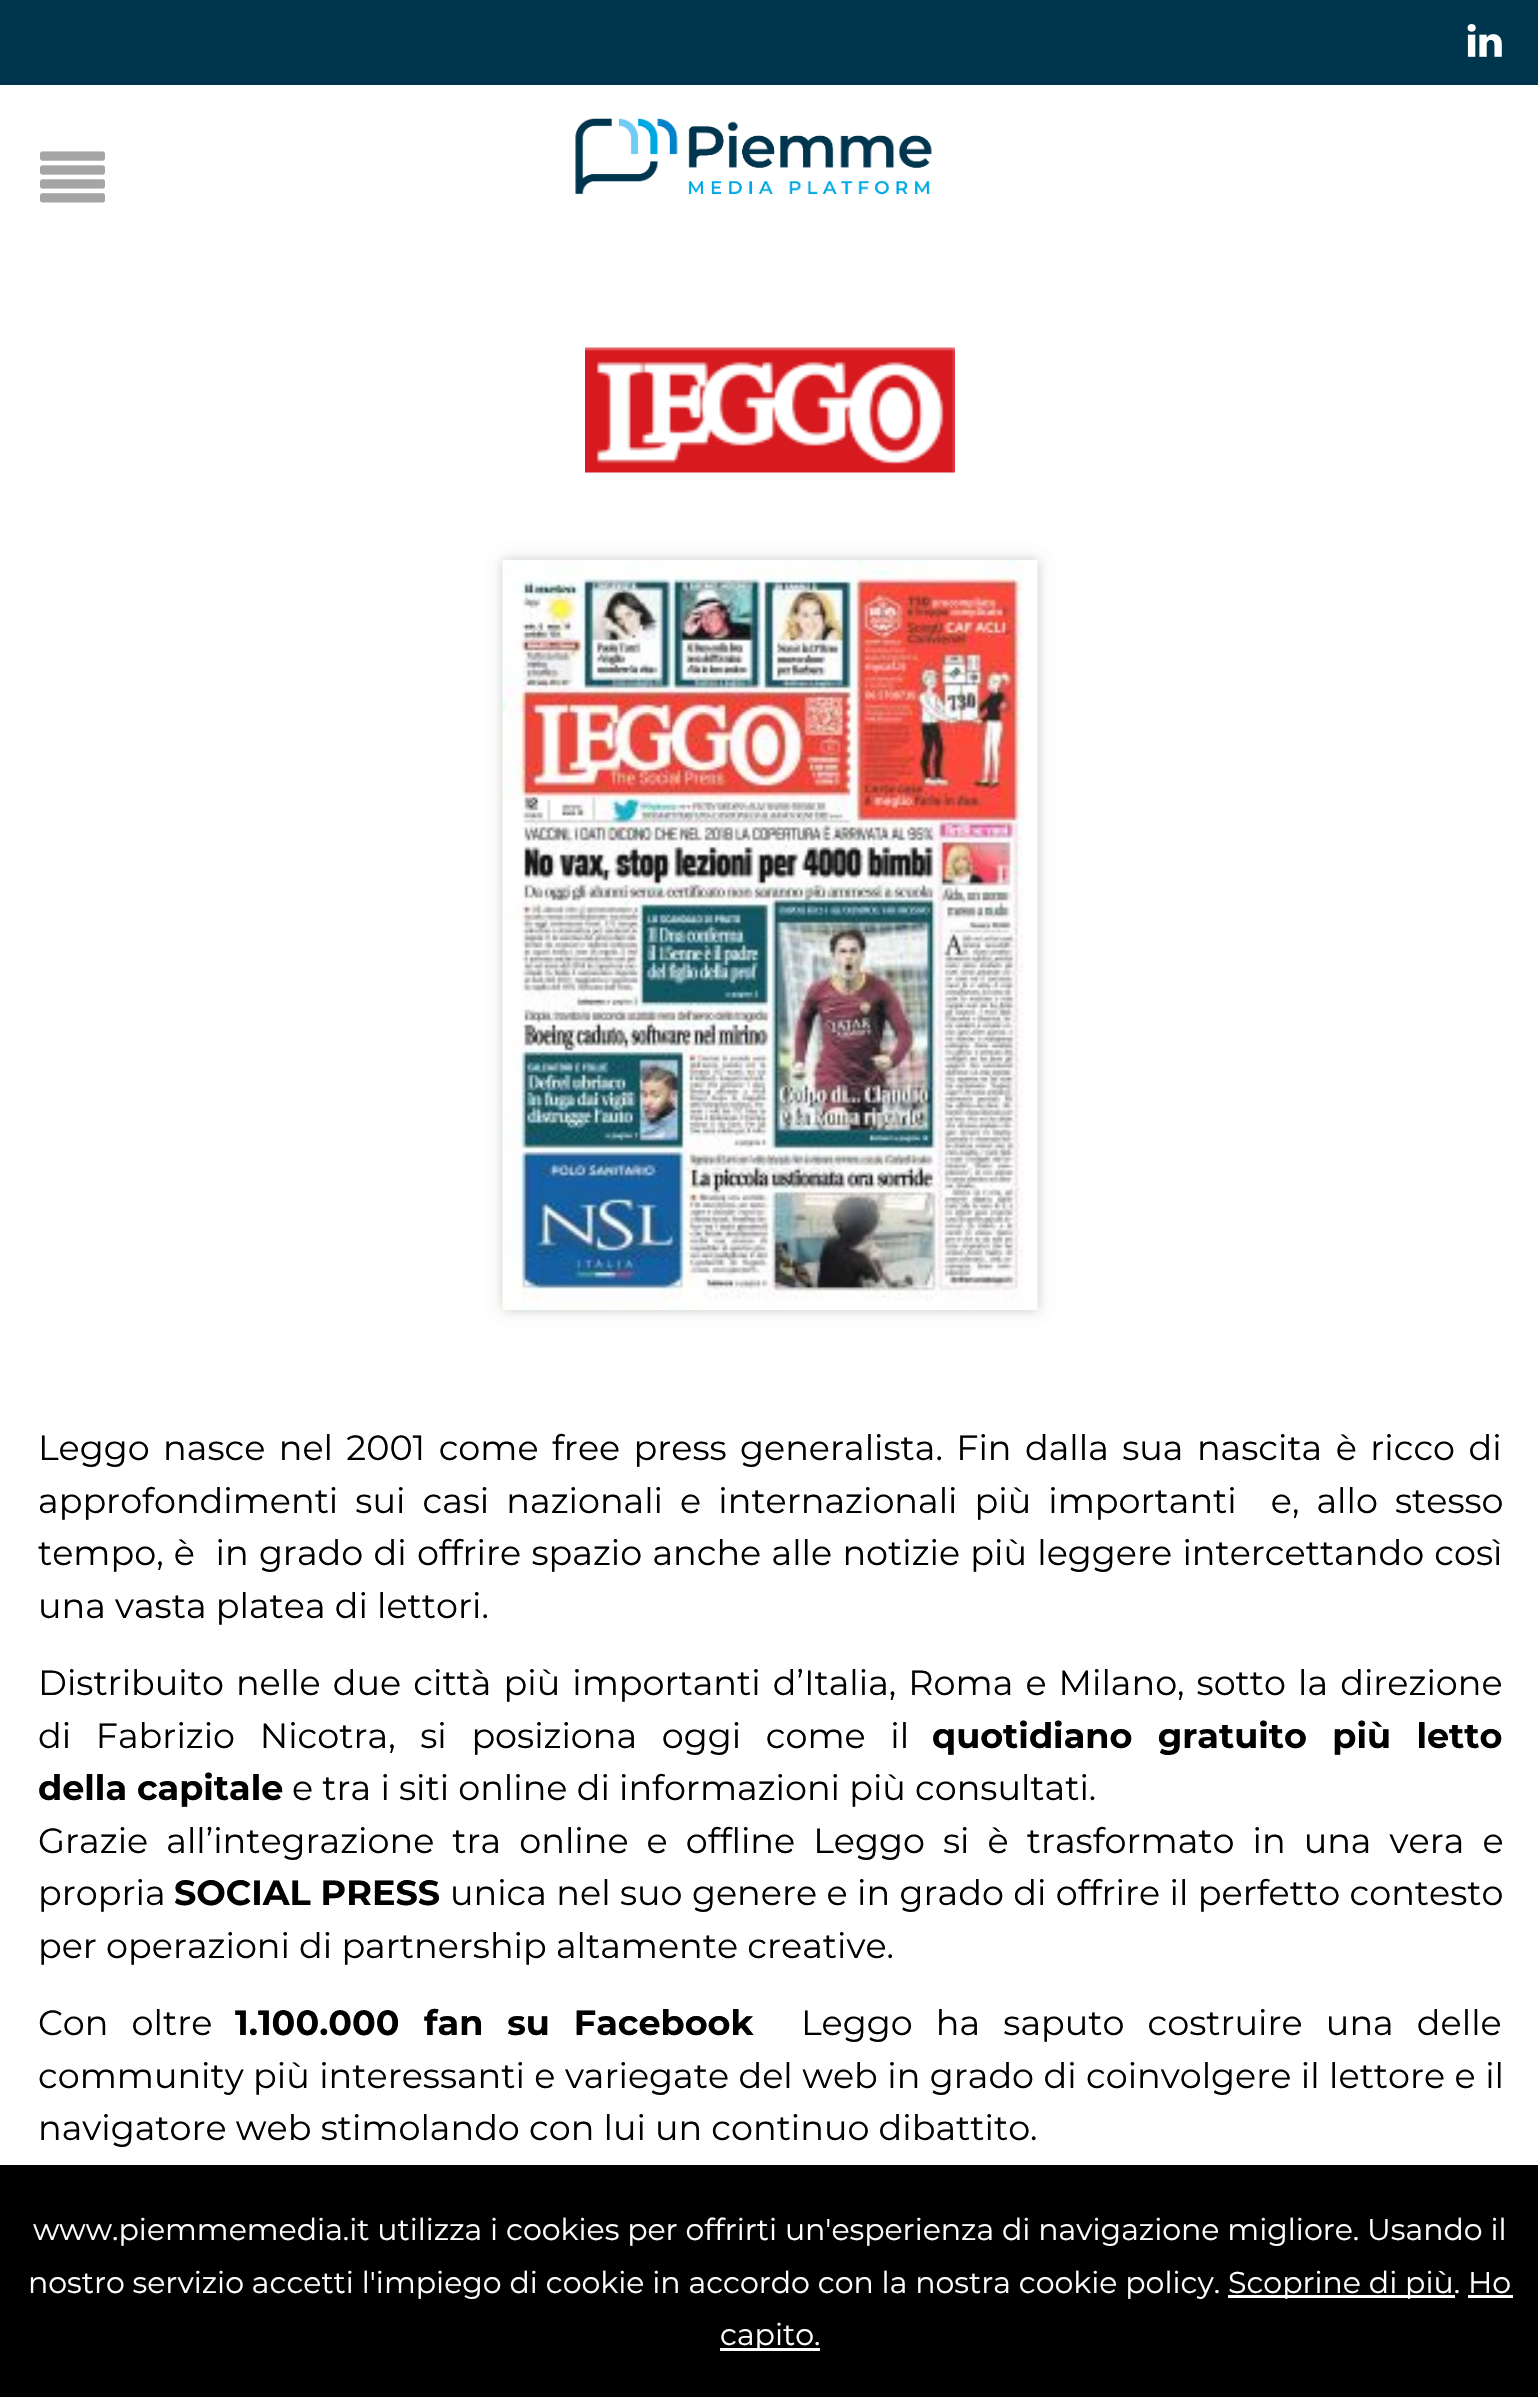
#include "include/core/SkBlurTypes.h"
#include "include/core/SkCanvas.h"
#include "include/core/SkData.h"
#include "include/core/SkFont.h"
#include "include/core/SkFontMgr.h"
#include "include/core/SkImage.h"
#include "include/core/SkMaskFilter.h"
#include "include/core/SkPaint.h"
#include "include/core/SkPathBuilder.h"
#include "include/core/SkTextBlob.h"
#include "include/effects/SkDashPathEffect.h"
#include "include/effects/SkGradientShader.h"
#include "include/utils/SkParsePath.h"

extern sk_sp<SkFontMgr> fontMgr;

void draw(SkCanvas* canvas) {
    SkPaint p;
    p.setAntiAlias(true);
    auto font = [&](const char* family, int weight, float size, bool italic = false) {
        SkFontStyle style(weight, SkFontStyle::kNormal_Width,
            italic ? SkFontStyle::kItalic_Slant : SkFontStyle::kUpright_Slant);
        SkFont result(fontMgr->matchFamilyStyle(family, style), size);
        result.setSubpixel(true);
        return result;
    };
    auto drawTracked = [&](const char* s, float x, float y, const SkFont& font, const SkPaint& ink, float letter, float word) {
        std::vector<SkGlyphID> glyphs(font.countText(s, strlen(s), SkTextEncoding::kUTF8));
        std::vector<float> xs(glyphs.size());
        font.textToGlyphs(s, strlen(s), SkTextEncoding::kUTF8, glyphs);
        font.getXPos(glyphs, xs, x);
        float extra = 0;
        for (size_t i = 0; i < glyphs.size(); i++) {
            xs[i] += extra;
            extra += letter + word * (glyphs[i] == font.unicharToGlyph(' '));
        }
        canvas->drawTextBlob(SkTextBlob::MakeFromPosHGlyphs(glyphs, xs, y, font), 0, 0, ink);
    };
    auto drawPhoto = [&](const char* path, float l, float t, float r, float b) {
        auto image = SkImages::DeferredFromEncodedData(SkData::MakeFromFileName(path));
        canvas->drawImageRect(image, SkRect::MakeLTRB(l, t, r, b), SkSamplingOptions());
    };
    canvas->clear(0xFFFFFFFF);
    p.setColor(0xFF00354E);
    canvas->drawRect(SkRect::MakeLTRB(0, 0, 1538, 85), p);
    drawPhoto("media/1.png", 1467, 24, 1502, 57);
    drawPhoto("media/2.png", 40, 151, 105, 203);
    drawPhoto("media/3.png", 575, 118, 932, 195);
    drawPhoto("media/4.png", 585, 347, 955, 473);
    p.setColor(0x1A000000);
    p.setMaskFilter(SkMaskFilter::MakeBlur(kNormal_SkBlurStyle, 6));
    canvas->drawRect(SkRect::MakeLTRB(503, 560, 1038, 1310), p);
    p.setMaskFilter(nullptr);
    p.setMaskFilter(SkMaskFilter::MakeBlur(kNormal_SkBlurStyle, 6));
    canvas->drawRect(SkRect::MakeLTRB(503, 560, 1038, 1310), p);
    p.setMaskFilter(nullptr);
    drawPhoto("media/5.png", 502, 560, 1038, 1310);
    auto font1 = font("Montserrat", 400, 35);
    p.setColor(0xFF000000);
    drawTracked("Leggo nasce nel 2001 come", 38, 1460, font1, p, 0, 4.25f);
    drawTracked("free press generalista. Fin dalla sua nascita è ricco di", 552, 1460, font1, p, 0, 4.25f);
    drawTracked("approfondimenti sui casi nazionali e internazionali più importanti  e, allo stesso", 38, 1513, font1, p, 0, 7.9f);
    drawTracked("tempo, è  in grado di offrire spazio anche alle notizie più leggere intercettando così", 38, 1565, font1, p, 0, 1.1f);
    canvas->drawString("una vasta platea di lettori.", 38, 1618, font1, p);
    drawTracked("Distribuito nelle due città più importanti d’Italia, Roma e Milano, sotto la direzione", 38, 1695, font1, p, 0, 2.9f);
    drawTracked("di Fabrizio Nicotra, si posiziona oggi come il", 38, 1748, font1, p, 0, 15.5f);
    auto font2 = font("Montserrat", 700, 35);
    drawTracked("quotidiano gratuito più letto", 932, 1748, font2, p, 0, 15.5f);
    canvas->drawString("della capitale", 38, 1800, font2, p);
    canvas->drawString("e tra i siti online di informazioni più consultati.", 292, 1800, font1, p);
    drawTracked("Grazie all’integrazione tra online e offline Leggo si è trasformato in una vera e", 38, 1853, font1, p, 0, 8.9f);
    canvas->drawString("propria", 38, 1905, font1, p);
    canvas->drawString("SOCIAL PRESS", 174, 1905, font2, p);
    drawTracked("unica nel suo genere e in grado di offrire il perfetto contesto", 450, 1905, font1, p, 0, 0.25f);
    canvas->drawString("per operazioni di partnership altamente creative.", 38, 1958, font1, p);
    drawTracked("Con oltre", 38, 2035, font1, p, 0, 14);
    canvas->drawString("1.100.000", 235, 2035, font2, p);
    drawTracked("fan su Facebook", 424, 2035, font2, p, 0, 14);
    drawTracked("Leggo ha saputo costruire una delle", 801, 2035, font1, p, 0, 14);
    drawTracked("community più interessanti e variegate del web in grado di coinvolgere il lettore e il", 38, 2088, font1, p, 0, 0.25f);
    canvas->drawString("navigatore web stimolando con lui un continuo dibattito.", 38, 2140, font1, p);
    canvas->drawRect(SkRect::MakeLTRB(0, 2165, 1538, 2397), p);
    auto font3 = font("Montserrat", 400, 30);
    p.setColor(0xFFFFFFFF);
    canvas->drawString("www.piemmemedia.it utilizza i cookies per offrirti un'esperienza di navigazione migliore. Usando il", 33, 2240, font3, p);
    canvas->drawString("nostro servizio accetti l'impiego di cookie in accordo con la nostra cookie policy.", 28, 2293, font3, p);
    canvas->drawRect(SkRect::MakeLTRB(1228, 2295, 1455, 2298), p);
    canvas->drawString("Scoprine di più. Ho", 1228, 2293, font3, p);
    canvas->drawRect(SkRect::MakeLTRB(720, 2348, 820, 2351), p);
    canvas->drawString("capito.", 720, 2345, font3, p);
    canvas->drawRect(SkRect::MakeLTRB(1468, 2295, 1513, 2298), p);
}
